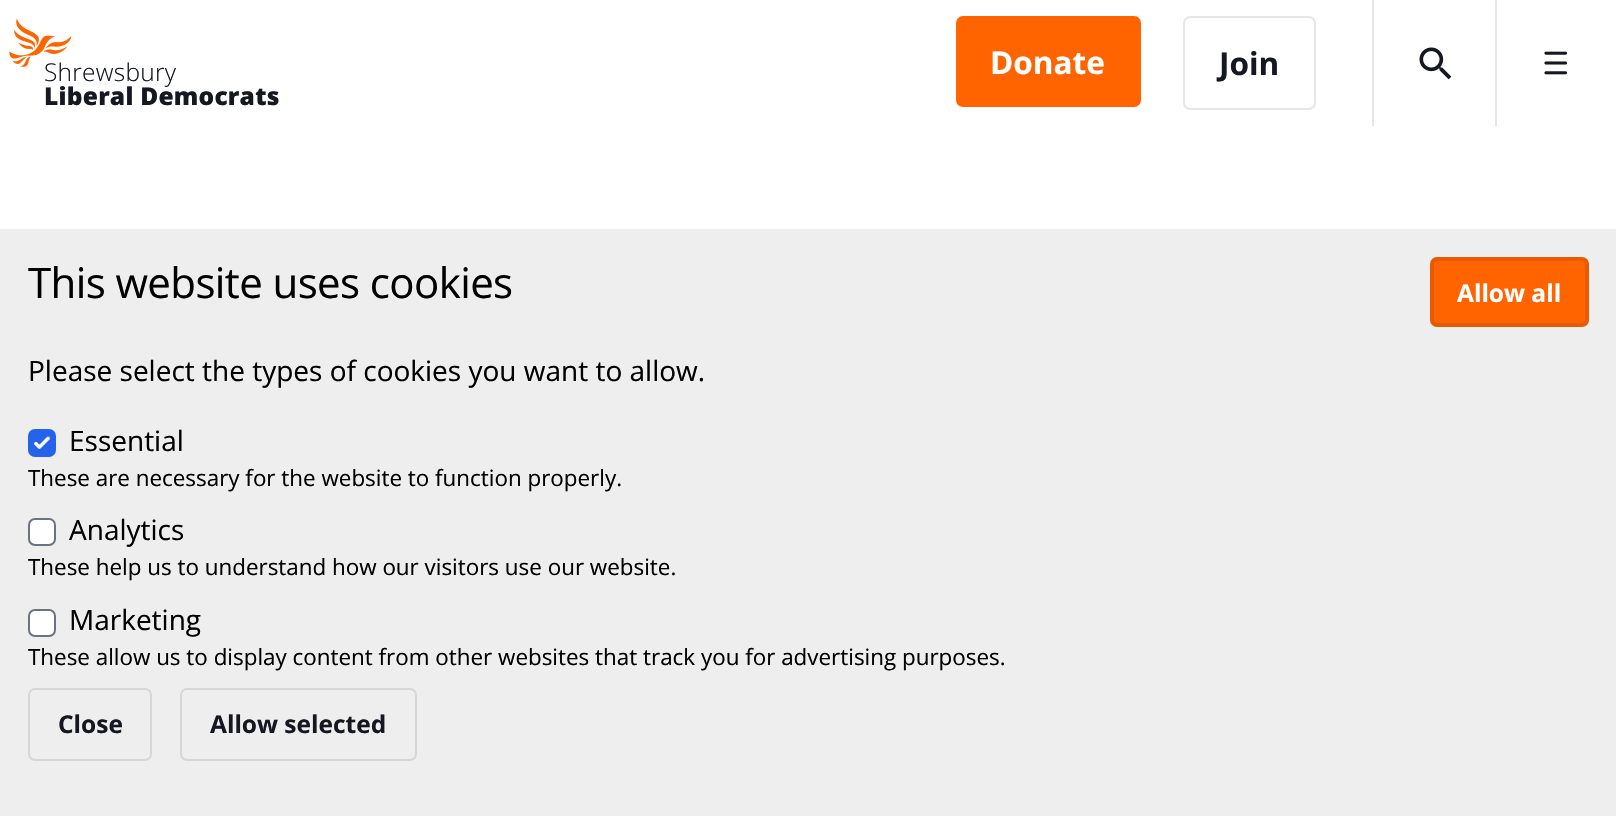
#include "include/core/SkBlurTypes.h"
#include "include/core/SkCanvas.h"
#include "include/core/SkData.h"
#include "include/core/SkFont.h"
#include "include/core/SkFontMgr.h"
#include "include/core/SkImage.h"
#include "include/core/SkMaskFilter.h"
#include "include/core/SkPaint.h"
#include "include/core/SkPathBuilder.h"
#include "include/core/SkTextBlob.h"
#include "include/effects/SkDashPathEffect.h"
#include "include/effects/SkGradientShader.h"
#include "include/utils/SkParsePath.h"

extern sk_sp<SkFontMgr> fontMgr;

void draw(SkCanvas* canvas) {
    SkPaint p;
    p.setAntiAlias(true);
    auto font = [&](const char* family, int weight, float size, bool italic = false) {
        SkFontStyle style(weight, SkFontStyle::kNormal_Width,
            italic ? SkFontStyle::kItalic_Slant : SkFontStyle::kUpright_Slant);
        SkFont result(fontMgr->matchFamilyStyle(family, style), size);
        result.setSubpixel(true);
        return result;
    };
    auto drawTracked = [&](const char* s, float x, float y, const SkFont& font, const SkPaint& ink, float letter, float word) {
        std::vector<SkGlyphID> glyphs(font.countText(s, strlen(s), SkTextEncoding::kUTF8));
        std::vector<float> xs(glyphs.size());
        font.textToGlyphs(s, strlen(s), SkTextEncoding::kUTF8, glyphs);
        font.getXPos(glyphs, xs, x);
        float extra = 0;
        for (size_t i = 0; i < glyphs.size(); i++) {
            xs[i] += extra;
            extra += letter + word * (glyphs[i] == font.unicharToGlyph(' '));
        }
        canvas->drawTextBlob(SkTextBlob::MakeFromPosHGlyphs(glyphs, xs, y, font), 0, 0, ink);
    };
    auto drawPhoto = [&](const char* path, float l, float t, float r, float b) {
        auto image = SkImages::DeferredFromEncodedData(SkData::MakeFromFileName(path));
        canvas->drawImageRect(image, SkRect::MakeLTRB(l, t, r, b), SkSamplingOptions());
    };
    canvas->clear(0xFFFFFFFF);
    auto font1 = font("Open Sans", 300, 24.5f);
    p.setColor(0xFF151721);
    drawTracked("Shrewsbury", 44, 81, font1, p, 0.25f, 0);
    drawPhoto("media/1.png", 9, 18, 72, 67);
    auto font2 = font("Open Sans", 800, 24.5f);
    drawTracked("Liberal Democrats", 44, 105, font2, p, 0.25f, 0);
    p.setColor(0xFFFF6400);
    canvas->drawRoundRect(SkRect::MakeLTRB(956, 16, 1141, 107), 7, 7, p);
    auto font3 = font("Open Sans", 700, 31.5f);
    p.setColor(0xFFFFFFFF);
    canvas->drawString("Donate", 990, 74, font3, p);
    p.setStyle(SkPaint::kStroke_Style);
    p.setStrokeWidth(2);
    p.setColor(0xFFE6E6E6);
    canvas->drawRoundRect(SkRect::MakeLTRB(1184, 17, 1315, 109), 6, 6, p);
    p.setStyle(SkPaint::kFill_Style);
    p.setColor(0xFF151721);
    canvas->drawString("Join", 1219, 75, font3, p);
    p.setColor(0xFFE6E6E6);
    canvas->drawRect(SkRect::MakeLTRB(1372, 0, 1374, 126), p);
    drawPhoto("media/2.png", 1419, 47, 1452, 80);
    canvas->drawRect(SkRect::MakeLTRB(1495, 0, 1497, 126), p);
    drawPhoto("media/3.png", 1544, 51, 1568, 75);
    p.setColor(0xFFEEEEEE);
    canvas->drawRect(SkRect::MakeLTRB(0, 229, 1616, 816), p);
    auto font4 = font("Open Sans", 400, 42);
    p.setColor(0xFF000000);
    drawTracked("This website uses cookies", 28, 298, font4, p, -0.6f, 0);
    p.setColor(0xFFFF6400);
    canvas->drawRoundRect(SkRect::MakeLTRB(1432, 259, 1587, 325), 5, 5, p);
    p.setStyle(SkPaint::kStroke_Style);
    p.setStrokeWidth(4);
    p.setColor(0xFFE65A00);
    canvas->drawRoundRect(SkRect::MakeLTRB(1432, 259, 1587, 325), 5, 5, p);
    auto font5 = font("Open Sans", 700, 24.5f);
    p.setStyle(SkPaint::kFill_Style);
    p.setColor(0xFFFFFFFF);
    canvas->drawString("Allow all", 1457, 302, font5, p);
    auto font6 = font("Open Sans", 400, 28);
    p.setColor(0xFF000000);
    canvas->drawString("Please select the types of cookies you want to allow.", 28, 381, font6, p);
    p.setColor(0xFF2563EB);
    canvas->drawRoundRect(SkRect::MakeLTRB(28, 429, 56, 457), 7, 7, p);
    drawPhoto("media/4.png", 34, 436, 50, 449);
    p.setColor(0xFF000000);
    canvas->drawString("Essential", 69, 451, font6, p);
    auto font7 = font("Open Sans", 400, 22.4f);
    canvas->drawString("These are necessary for the website to function properly.", 28, 486, font7, p);
    p.setColor(0xFFFFFFFF);
    canvas->drawRoundRect(SkRect::MakeLTRB(29, 519, 55, 545), 6, 6, p);
    p.setStyle(SkPaint::kStroke_Style);
    p.setStrokeWidth(2);
    p.setColor(0xFF6B7280);
    canvas->drawRoundRect(SkRect::MakeLTRB(29, 519, 55, 545), 6, 6, p);
    p.setStyle(SkPaint::kFill_Style);
    p.setColor(0xFF000000);
    canvas->drawString("Analytics", 69, 540, font6, p);
    canvas->drawString("These help us to understand how our visitors use our website.", 28, 575, font7, p);
    p.setColor(0xFFFFFFFF);
    canvas->drawRoundRect(SkRect::MakeLTRB(29, 610, 55, 636), 6, 6, p);
    p.setStyle(SkPaint::kStroke_Style);
    p.setColor(0xFF6B7280);
    canvas->drawRoundRect(SkRect::MakeLTRB(29, 610, 55, 636), 6, 6, p);
    p.setStyle(SkPaint::kFill_Style);
    p.setColor(0xFF000000);
    canvas->drawString("Marketing", 69, 630, font6, p);
    canvas->drawString("These allow us to display content from other websites that track you for advertising purposes.", 28, 665, font7, p);
    p.setStyle(SkPaint::kStroke_Style);
    p.setColor(0xFFD6D6D6);
    canvas->drawRoundRect(SkRect::MakeLTRB(29, 689, 151, 760), 6, 6, p);
    p.setStyle(SkPaint::kFill_Style);
    p.setColor(0xFF151721);
    canvas->drawString("Close", 58, 733, font5, p);
    p.setStyle(SkPaint::kStroke_Style);
    p.setColor(0xFFD6D6D6);
    canvas->drawRoundRect(SkRect::MakeLTRB(181, 689, 416, 760), 6, 6, p);
    p.setStyle(SkPaint::kFill_Style);
    p.setColor(0xFF151721);
    canvas->drawString("Allow selected", 210, 733, font5, p);
}
